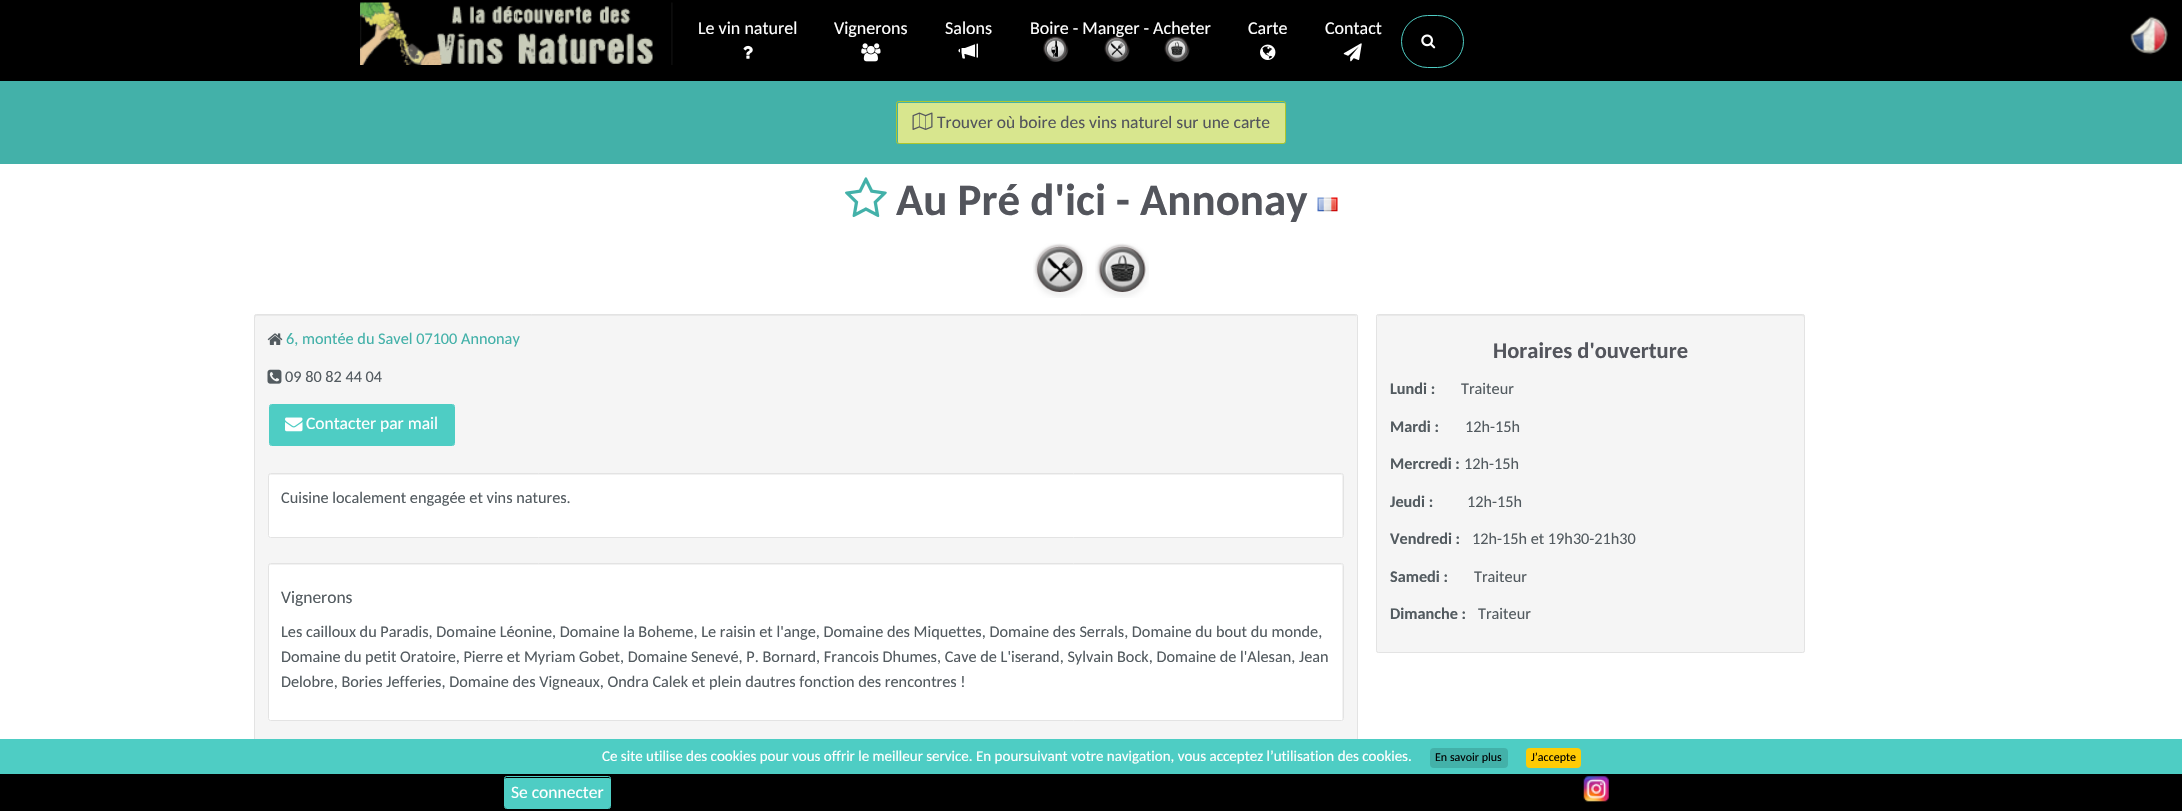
#include "include/core/SkBlurTypes.h"
#include "include/core/SkCanvas.h"
#include "include/core/SkData.h"
#include "include/core/SkFont.h"
#include "include/core/SkFontMgr.h"
#include "include/core/SkImage.h"
#include "include/core/SkMaskFilter.h"
#include "include/core/SkPaint.h"
#include "include/core/SkPathBuilder.h"
#include "include/core/SkTextBlob.h"
#include "include/effects/SkDashPathEffect.h"
#include "include/effects/SkGradientShader.h"
#include "include/utils/SkParsePath.h"

extern sk_sp<SkFontMgr> fontMgr;

void draw(SkCanvas* canvas) {
    SkPaint p;
    p.setAntiAlias(true);
    auto font = [&](const char* family, int weight, float size, bool italic = false) {
        SkFontStyle style(weight, SkFontStyle::kNormal_Width,
            italic ? SkFontStyle::kItalic_Slant : SkFontStyle::kUpright_Slant);
        SkFont result(fontMgr->matchFamilyStyle(family, style), size);
        result.setSubpixel(true);
        return result;
    };
    auto drawPhoto = [&](const char* path, float l, float t, float r, float b) {
        auto image = SkImages::DeferredFromEncodedData(SkData::MakeFromFileName(path));
        canvas->drawImageRect(image, SkRect::MakeLTRB(l, t, r, b), SkSamplingOptions());
    };
    canvas->clear(0xFF000000);
    drawPhoto("media/1.png", 360, 2, 673, 65);
    auto font1 = font("Carlito", 400, 18);
    p.setColor(0xFFFFFFFF);
    canvas->drawString("Le vin naturel", 698, 34, font1, p);
    drawPhoto("media/2.png", 743, 45, 753, 59);
    canvas->drawString("Vignerons", 834, 34, font1, p);
    drawPhoto("media/3.png", 861, 43, 881, 62);
    canvas->drawString("Salons", 945, 34, font1, p);
    drawPhoto("media/4.png", 958, 43, 978, 59);
    canvas->drawString("Boire - Manger - Acheter", 1030, 34, font1, p);
    drawPhoto("media/5.png", 1043, 36, 1069, 62);
    drawPhoto("media/6.png", 1104, 36, 1130, 62);
    drawPhoto("media/7.png", 1164, 36, 1190, 62);
    canvas->drawString("Carte", 1248, 34, font1, p);
    drawPhoto("media/8.png", 1260, 44, 1276, 60);
    canvas->drawString("Contact", 1325, 34, font1, p);
    drawPhoto("media/9.png", 1343, 43, 1362, 62);
    p.setStyle(SkPaint::kStroke_Style);
    p.setStrokeWidth(1);
    p.setColor(0xFF4ECDC4);
    canvas->drawRoundRect(SkRect::MakeLTRB(1401.5f, 15.5f, 1463.5f, 67.5f), 26, 26, p);
    drawPhoto("media/10.png", 1421, 34, 1436, 49);
    drawPhoto("media/11.png", 2130, 16, 2168, 55);
    p.setStyle(SkPaint::kFill_Style);
    p.setColor(0xFF43B1A9);
    canvas->drawRect(SkRect::MakeLTRB(0, 81, 2182, 164), p);
    p.setColor(0xFFD8E68E);
    canvas->drawRoundRect(SkRect::MakeLTRB(898, 103, 1285, 143), 1, 1, p);
    p.setStyle(SkPaint::kStroke_Style);
    p.setColor(0xFFAEC62C);
    canvas->drawRoundRect(SkRect::MakeLTRB(896.5f, 101.5f, 1285.5f, 143.5f), 2, 2, p);
    drawPhoto("media/12.png", 912, 112, 933, 130);
    auto font2 = font("Carlito", 400, 17.5f);
    p.setStyle(SkPaint::kFill_Style);
    p.setColor(0xFF53555C);
    canvas->drawString("Trouver où boire des vins naturel sur une carte", 937, 128, font2, p);
    p.setColor(0xFFFFFFFF);
    canvas->drawRect(SkRect::MakeLTRB(0, 164, 2182, 739), p);
    drawPhoto("media/13.png", 845, 177, 887, 218);
    auto font3 = font("Carlito", 700, 45);
    p.setColor(0xFF53555C);
    canvas->drawString("Au Pré d'ici - Annonay", 896, 215, font3, p);
    drawPhoto("media/14.png", 1317, 197, 1338, 212);
    drawPhoto("media/15.png", 1033, 243, 1087, 298);
    drawPhoto("media/16.png", 1095, 243, 1149, 298);
    p.setColor(0xFFF5F5F5);
    canvas->drawRoundRect(SkRect::MakeLTRB(254, 314, 1358, 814), 2.5f, 2.5f, p);
    p.setColor(0xFFE9E9E9);
    canvas->drawPath(SkPathBuilder().moveTo(256, 316).lineTo(1355, 316).cubicTo(1356, 316, 1356, 317, 1356, 318).lineTo(1356, 315).lineTo(256, 315).lineTo(255, 315).lineTo(255, 318).close().detach(), p);
    p.setStyle(SkPaint::kStroke_Style);
    p.setColor(0xFFE3E3E3);
    canvas->drawRoundRect(SkRect::MakeLTRB(254.5f, 314.5f, 1357.5f, 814.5f), 2, 2, p);
    drawPhoto("media/17.png", 267, 333, 283, 345);
    auto font4 = font("Carlito", 400, 16.25f);
    p.setStyle(SkPaint::kFill_Style);
    p.setColor(0xFF43B1A9);
    canvas->drawString("6, montée du Savel 07100 Annonay", 286, 344, font4, p);
    drawPhoto("media/18.png", 267, 369, 282, 384);
    p.setColor(0xFF535B60);
    canvas->drawString("09 80 82 44 04", 285, 382, font4, p);
    p.setColor(0xFF4ECDC4);
    canvas->drawRoundRect(SkRect::MakeLTRB(270, 405, 454, 445), 1, 1, p);
    p.setStyle(SkPaint::kStroke_Style);
    canvas->drawRoundRect(SkRect::MakeLTRB(269.5f, 404.5f, 454.5f, 445.5f), 2, 2, p);
    drawPhoto("media/19.png", 285, 417, 303, 432);
    p.setStyle(SkPaint::kFill_Style);
    p.setColor(0xFFFFFFFF);
    canvas->drawString("Contacter par mail", 306, 429, font2, p);
    canvas->drawRoundRect(SkRect::MakeLTRB(268, 473, 1344, 538), 2.5f, 2.5f, p);
    p.setColor(0xFFF2F2F2);
    canvas->drawPath(SkPathBuilder().moveTo(270, 475).lineTo(1341, 475).cubicTo(1342, 475, 1342, 476, 1342, 476).lineTo(1342, 536).cubicTo(1343, 536, 1343, 536, 1343, 535).lineTo(1343, 475).cubicTo(1343, 474, 1343, 474, 1342, 474).lineTo(270, 474).cubicTo(269, 474, 269, 474, 269, 475).lineTo(269, 476).close().detach(), p);
    p.setStyle(SkPaint::kStroke_Style);
    p.setColor(0xFFE3E3E3);
    canvas->drawRoundRect(SkRect::MakeLTRB(268.5f, 473.5f, 1343.5f, 537.5f), 2, 2, p);
    p.setStyle(SkPaint::kFill_Style);
    p.setColor(0xFF535B60);
    canvas->drawString("Cuisine localement engagée et vins natures.", 281, 503, font4, p);
    p.setColor(0xFFFFFFFF);
    canvas->drawRoundRect(SkRect::MakeLTRB(268, 563, 1344, 721), 2.5f, 2.5f, p);
    p.setColor(0xFFF2F2F2);
    canvas->drawPath(SkPathBuilder().moveTo(270, 565).lineTo(1341, 565).cubicTo(1342, 565, 1342, 566, 1342, 566).lineTo(1342, 720).lineTo(1343, 719).lineTo(1343, 565).lineTo(1342, 564).lineTo(269, 564).lineTo(269, 566).close().detach(), p);
    p.setStyle(SkPaint::kStroke_Style);
    p.setColor(0xFFE3E3E3);
    canvas->drawRoundRect(SkRect::MakeLTRB(268.5f, 563.5f, 1343.5f, 720.5f), 2, 2, p);
    p.setStyle(SkPaint::kFill_Style);
    p.setColor(0xFF535B60);
    canvas->drawString("Vignerons", 281, 603, font2, p);
    {
        const struct { const char* s; float x, y; } items[] = {
            {"Les cailloux du Paradis, Domaine Léonine, Domaine la Boheme, Le raisin et l'ange, Domaine des Miquettes, Domaine des Serrals, Domaine du bout du monde,", 281, 637},
            {"Domaine du petit Oratoire, Pierre et Myriam Gobet, Domaine Senevé, P. Bornard, Francois Dhumes, Cave de L'iserand, Sylvain Bock, Domaine de l'Alesan, Jean", 281, 662},
            {"Delobre, Bories Jefferies, Domaine des Vigneaux, Ondra Calek et plein dautres fonction des rencontres !", 281, 687},
        };
        for (auto [s, x, y] : items) {
            canvas->drawString(s, x, y, font4, p);
        }
    }
    p.setColor(0xFFF5F5F5);
    canvas->drawRoundRect(SkRect::MakeLTRB(1376, 314, 1805, 653), 2.5f, 2.5f, p);
    p.setColor(0xFFE9E9E9);
    canvas->drawPath(SkPathBuilder().moveTo(1379, 316).lineTo(1802, 316).cubicTo(1803, 316, 1804, 317, 1804, 318).cubicTo(1804, 317, 1804, 315, 1803, 315).lineTo(1378, 315).lineTo(1378, 318).cubicTo(1378, 317, 1378, 316, 1379, 316).close().detach(), p);
    p.setStyle(SkPaint::kStroke_Style);
    p.setColor(0xFFE3E3E3);
    canvas->drawRoundRect(SkRect::MakeLTRB(1376.5f, 314.5f, 1804.5f, 652.5f), 2, 2, p);
    auto font5 = font("Carlito", 700, 22.5f);
    p.setStyle(SkPaint::kFill_Style);
    p.setColor(0xFF53555C);
    canvas->drawString("Horaires d'ouverture", 1493, 358, font5, p);
    auto font6 = font("Carlito", 700, 16.25f);
    p.setColor(0xFF535B60);
    canvas->drawString("Lundi :", 1390, 394, font6, p);
    canvas->drawString("Traiteur", 1461, 394, font4, p);
    canvas->drawString("Mardi :", 1390, 432, font6, p);
    canvas->drawString("12h-15h", 1465, 432, font4, p);
    canvas->drawString("Mercredi :", 1390, 469, font6, p);
    canvas->drawString("12h-15h", 1464, 469, font4, p);
    canvas->drawString("Jeudi :", 1390, 507, font6, p);
    canvas->drawString("12h-15h", 1467, 507, font4, p);
    canvas->drawString("Vendredi :", 1390, 544, font6, p);
    canvas->drawString("12h-15h et 19h30-21h30", 1472, 544, font4, p);
    canvas->drawString("Samedi :", 1390, 582, font6, p);
    canvas->drawString("Traiteur", 1474, 582, font4, p);
    canvas->drawString("Dimanche :", 1390, 619, font6, p);
    canvas->drawString("Traiteur", 1478, 619, font4, p);
    p.setColor(0xFF4ECDC4);
    canvas->drawRect(SkRect::MakeLTRB(0, 739, 2182, 774), p);
    auto font7 = font("Carlito", 400, 15);
    p.setColor(0xFFFFFFFF);
    canvas->drawString("Ce site utilise des cookies pour vous offrir le meilleur service. En poursuivant votre navigation, vous acceptez l’utilisation des cookies.", 602, 761, font7, p);
    p.setColor(0xFF43B1A9);
    canvas->drawRoundRect(SkRect::MakeLTRB(1430, 748, 1508, 768), 4, 4, p);
    auto font8 = font("Carlito", 400, 12);
    p.setColor(0xFF000000);
    canvas->drawString("En savoir plus", 1435, 761, font8, p);
    p.setColor(0xFFFFCB05);
    canvas->drawRoundRect(SkRect::MakeLTRB(1526, 748, 1581, 768), 4, 4, p);
    p.setColor(0xFF000000);
    canvas->drawString("J’accepte", 1531, 761, font8, p);
    canvas->drawRect(SkRect::MakeLTRB(254, 774, 1358, 811), p);
    p.setColor(0xFF4ECDC4);
    canvas->drawRoundRect(SkRect::MakeLTRB(505, 778, 610, 808), 1, 1, p);
    p.setStyle(SkPaint::kStroke_Style);
    canvas->drawRoundRect(SkRect::MakeLTRB(504.5f, 776.5f, 610.5f, 808.5f), 2, 2, p);
    p.setStyle(SkPaint::kFill_Style);
    p.setColor(0xFFFFFFFF);
    canvas->drawString("Se connecter", 511, 798, font2, p);
    drawPhoto("media/20.png", 1583, 776, 1609, 802);
}
